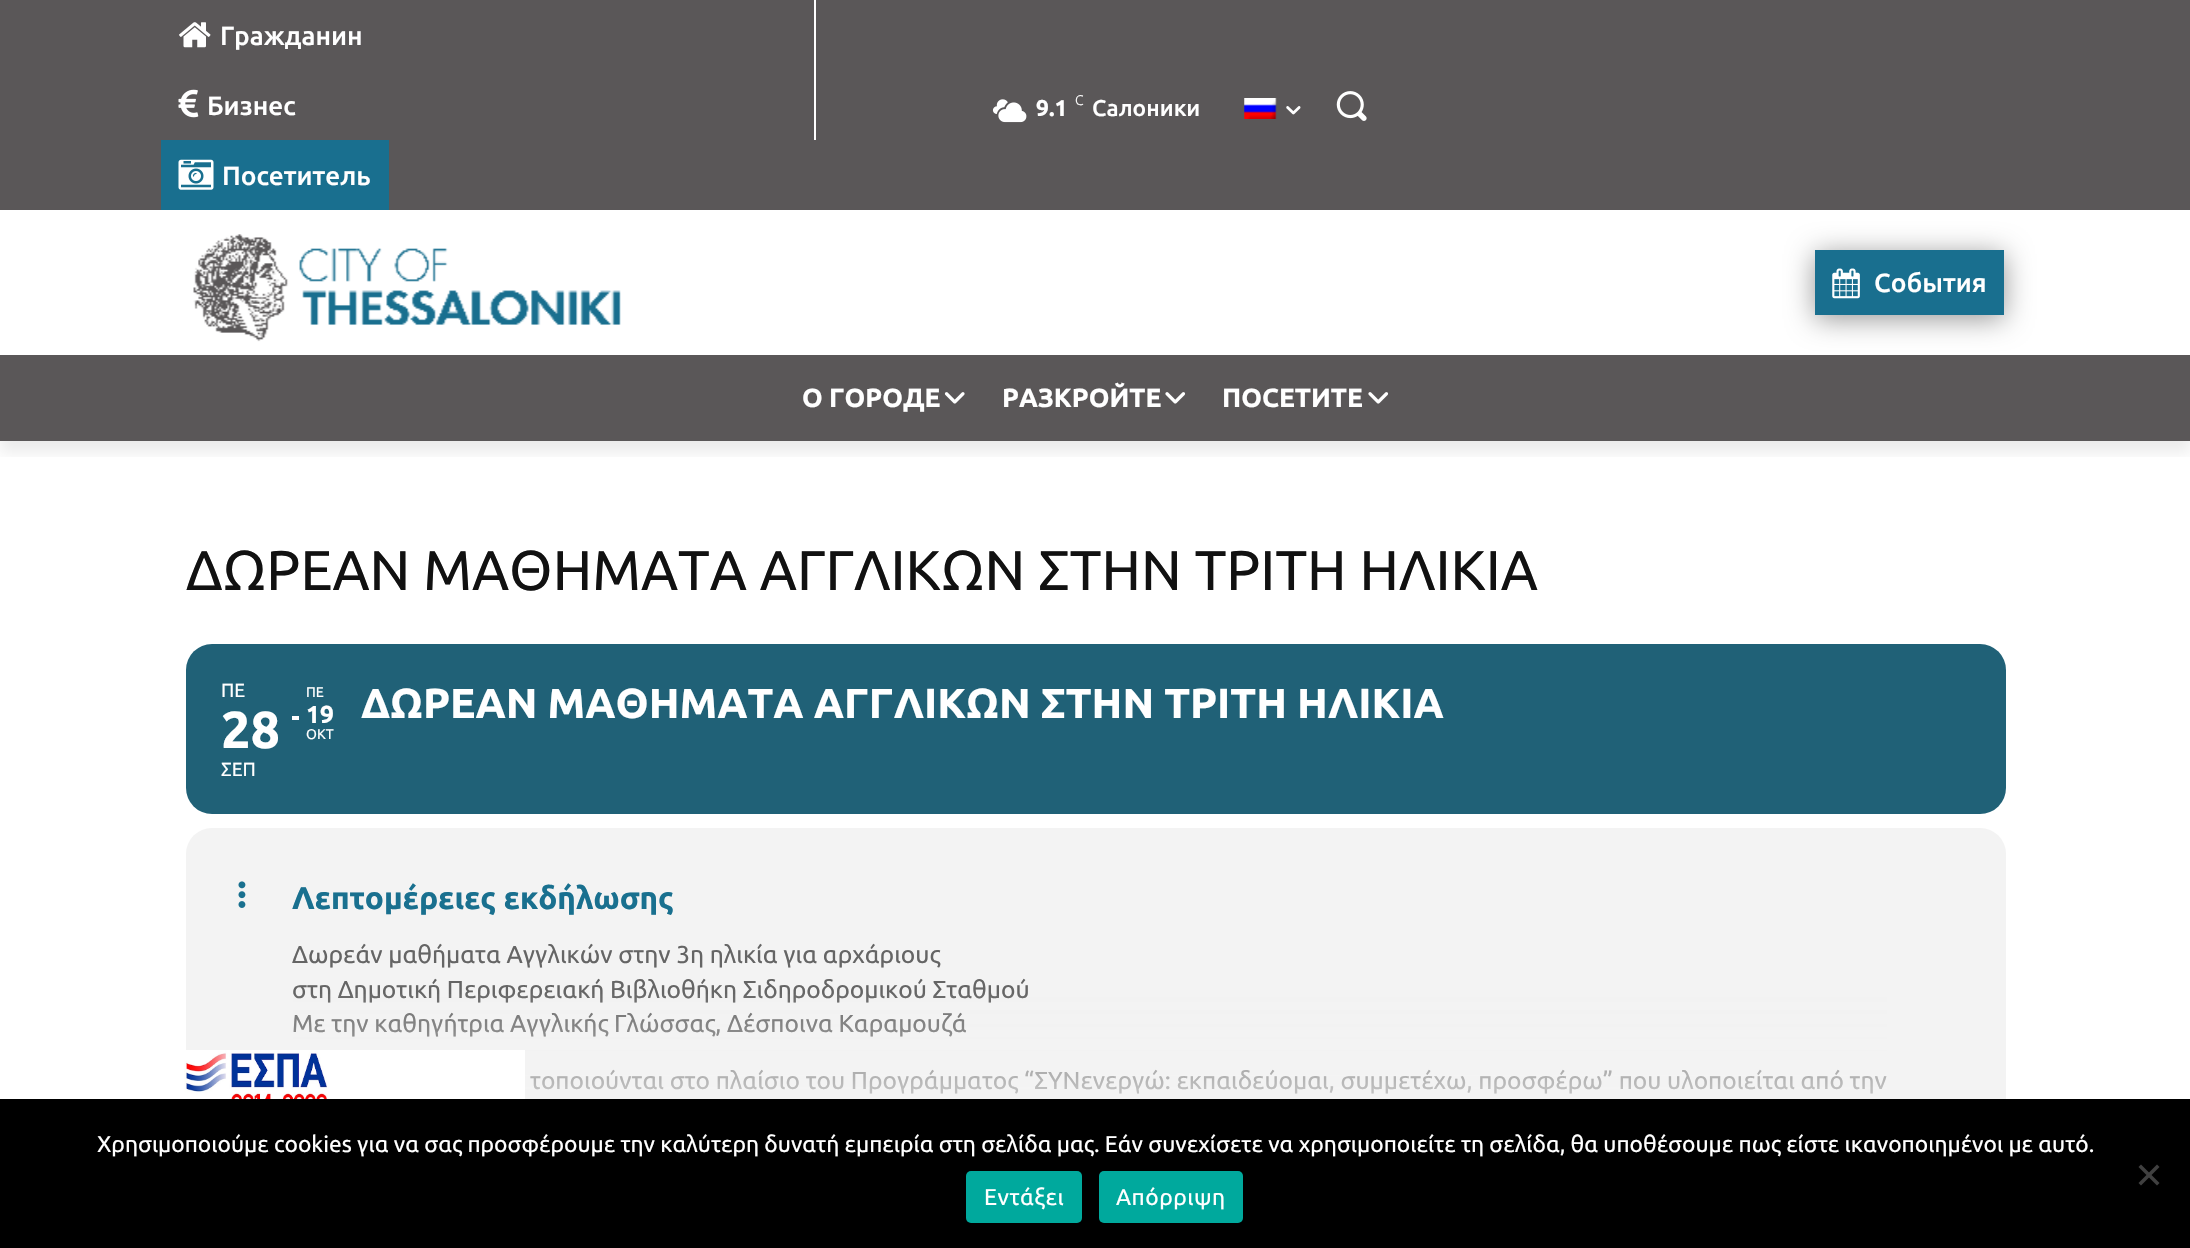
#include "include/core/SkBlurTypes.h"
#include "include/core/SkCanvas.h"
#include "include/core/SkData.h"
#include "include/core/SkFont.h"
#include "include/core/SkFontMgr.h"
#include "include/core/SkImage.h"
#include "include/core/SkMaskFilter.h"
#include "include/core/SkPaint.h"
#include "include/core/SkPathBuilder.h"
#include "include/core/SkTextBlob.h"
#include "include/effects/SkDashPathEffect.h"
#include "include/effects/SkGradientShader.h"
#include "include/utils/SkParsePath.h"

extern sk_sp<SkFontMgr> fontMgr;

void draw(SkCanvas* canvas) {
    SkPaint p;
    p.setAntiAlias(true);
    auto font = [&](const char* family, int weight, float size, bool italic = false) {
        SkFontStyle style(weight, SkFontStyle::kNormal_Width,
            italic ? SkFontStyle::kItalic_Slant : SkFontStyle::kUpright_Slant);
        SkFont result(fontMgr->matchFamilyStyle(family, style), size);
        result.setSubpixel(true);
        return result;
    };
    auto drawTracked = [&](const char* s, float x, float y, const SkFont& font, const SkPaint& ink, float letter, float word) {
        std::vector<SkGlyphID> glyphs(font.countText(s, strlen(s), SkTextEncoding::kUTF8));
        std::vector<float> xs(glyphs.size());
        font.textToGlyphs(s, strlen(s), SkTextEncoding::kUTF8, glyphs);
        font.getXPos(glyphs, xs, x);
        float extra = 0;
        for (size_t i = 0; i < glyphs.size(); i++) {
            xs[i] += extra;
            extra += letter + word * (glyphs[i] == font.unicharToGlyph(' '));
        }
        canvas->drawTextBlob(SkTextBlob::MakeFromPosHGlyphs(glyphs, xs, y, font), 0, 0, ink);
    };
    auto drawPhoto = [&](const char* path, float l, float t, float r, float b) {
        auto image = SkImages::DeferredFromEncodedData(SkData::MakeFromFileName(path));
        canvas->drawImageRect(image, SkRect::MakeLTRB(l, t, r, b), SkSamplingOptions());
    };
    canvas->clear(0xFFFFFFFF);
    p.setColor(0xFF5A5758);
    canvas->drawRect(SkRect::MakeLTRB(0, 0, 2190, 210), p);
    p.setColor(0xFFFFFFFF);
    canvas->drawRect(SkRect::MakeLTRB(814, 0, 816, 140), p);
    drawPhoto("media/1.png", 179, 22, 211, 48);
    drawPhoto("media/2.png", 178, 89, 199, 118);
    p.setColor(0xFF196F8F);
    canvas->drawRect(SkRect::MakeLTRB(161, 140, 389, 210), p);
    drawPhoto("media/3.png", 178, 159, 214, 190);
    drawPhoto("media/4.png", 992, 99, 1027, 123);
    drawPhoto("media/8.png", 193, 234, 621, 342);
    p.setColor(0xFF5A5758);
    canvas->drawRect(SkRect::MakeLTRB(0, 355, 2190, 441), p);
    p.setColor(0xFF969696);
    p.setMaskFilter(SkMaskFilter::MakeBlur(kNormal_SkBlurStyle, 14));
    canvas->drawRect(SkRect::MakeLTRB(1815, 254, 2004, 319), p);
    p.setMaskFilter(nullptr);
    p.setColor(0xFF196F8F);
    canvas->drawRect(SkRect::MakeLTRB(1815, 250, 2004, 315), p);
    drawPhoto("media/9.png", 1832, 268, 1860, 299);
    drawPhoto("media/10.png", 944, 392, 965, 404);
    drawPhoto("media/11.png", 1165, 392, 1186, 404);
    drawPhoto("media/11.png", 1368, 392, 1389, 404);
    canvas->save();
    canvas->clipRect(SkRect::MakeLTRB(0, 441, 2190, 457));
    p.setColor(0x14000000);
    p.setMaskFilter(SkMaskFilter::MakeBlur(kNormal_SkBlurStyle, 7));
    canvas->drawRect(SkRect::MakeLTRB(0, 11, 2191, 452), p);
    p.setMaskFilter(nullptr);
    canvas->restore();
    auto font1 = font("Ubuntu", 500, 26.25f);
    p.setColor(0xFFFFFFFF);
    {
        const struct { const char* s; float x, y; } items[] = {
            {"Гражданин", 220, 45},
            {"Бизнес", 207, 115},
            {"Посетитель", 222, 185},
        };
        for (auto [s, x, y] : items) {
            canvas->drawString(s, x, y, font1, p);
        }
    }
    auto font2 = font("Ubuntu", 700, 22.75f);
    canvas->drawString("9.1", 1036, 116, font2, p);
    auto font3 = font("Ubuntu", 300, 14);
    canvas->drawString("C", 1075, 105, font3, p);
    auto font4 = font("Ubuntu", 500, 22.75f);
    canvas->drawString("Салоники", 1092, 116, font4, p);
    drawPhoto("media/5.png", 1244, 98, 1277, 119);
    drawPhoto("media/6.png", 1286, 106, 1301, 115);
    drawPhoto("media/7.png", 1336, 91, 1367, 121);
    canvas->drawString("События", 1874, 292, font1, p);
    auto font5 = font("Ubuntu", 700, 26.25f);
    {
        const struct { const char* s; float x, y; } items[] = {
            {"О ГОРОДЕ", 802, 407},
            {"РАЗКРОЙТЕ", 1002, 407},
            {"ПОСЕТИТЕ", 1222, 407},
        };
        for (auto [s, x, y] : items) {
            canvas->drawString(s, x, y, font5, p);
        }
    }
    auto font6 = font("Ubuntu", 400, 56);
    p.setColor(0xFF111111);
    canvas->drawString("ΔΩΡΕΑΝ ΜΑΘΗΜΑΤΑ ΑΓΓΛΙΚΩΝ ΣΤΗΝ ΤΡΙΤΗ ΗΛΙΚΙΑ", 186, 590, font6, p);
    p.setColor(0xFF206177);
    canvas->drawRoundRect(SkRect::MakeLTRB(186, 644, 2006, 814), 26, 26, p);
    auto font7 = font("Ubuntu", 400, 19);
    p.setColor(0xFFFFFFFF);
    canvas->drawString("ΠΕ", 221, 697, font7, p);
    auto font8 = font("Ubuntu", 700, 52);
    canvas->drawString("28", 221, 748, font8, p);
    canvas->drawString("ΣΕΠ", 221, 776, font7, p);
    auto font9 = font("Ubuntu", 400, 14);
    canvas->drawString("ΠΕ", 306, 697, font9, p);
    canvas->drawRect(SkRect::MakeLTRB(292, 716, 299, 720), p);
    auto font10 = font("Ubuntu", 700, 24.5f);
    canvas->drawString("19", 306, 723, font10, p);
    canvas->drawString("ΟΚΤ", 306, 739, font9, p);
    auto font11 = font("Ubuntu", 700, 42);
    canvas->drawString("ΔΩΡΕΑΝ ΜΑΘΗΜΑΤΑ ΑΓΓΛΙΚΩΝ ΣΤΗΝ ΤΡΙΤΗ ΗΛΙΚΙΑ", 361, 718, font11, p);
    p.setColor(0xFFF3F3F3);
    canvas->drawRoundRect(SkRect::MakeLTRB(186, 828, 2006, 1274), 26, 26, p);
    drawPhoto("media/12.png", 238, 881, 246, 908);
    auto font12 = font("Ubuntu", 700, 31.5f);
    p.setColor(0xFF19708F);
    canvas->drawString("Λεπτομέρειες εκδήλωσης", 292, 909, font12, p);
    auto font13 = font("Ubuntu", 400, 24.5f);
    p.setColor(0xFF656565);
    {
        const struct { const char* s; float x, y; } items[] = {
            {"Δωρεάν μαθήματα Αγγλικών στην 3η ηλικία για αρχάριους", 292, 963},
            {"στη Δημοτική Περιφερειακή Βιβλιοθήκη Σιδηροδρομικού Σταθμού", 292, 998},
            {"Με την καθηγήτρια Αγγλικής Γλώσσας, Δέσποινα Καραμουζά", 292, 1032},
            {"τοποιούνται στο πλαίσιο του Προγράμματος “ΣΥΝενεργώ: εκπαιδεύομαι, συμμετέχω, προσφέρω” που υλοποιείται από την", 530, 1089},
        };
        for (auto [s, x, y] : items) {
            canvas->drawString(s, x, y, font13, p);
        }
    }
    {
        const SkColor colors[] = {0xFFF3F3F3, 0x00F3F3F3};
        const float stops[] = {0.2f, 0.8f};
        const SkPoint ends[] = {{1123, 1201}, {1123, 938}};
        p.setShader(SkGradientShader::MakeLinear(ends, colors, stops, 2, SkTileMode::kClamp));
        p.setAlpha(255);
    }
    canvas->drawRect(SkRect::MakeLTRB(293, 994, 1887, 1094), p);
    drawPhoto("media/13.png", 184, 1050, 525, 1099);
    p.setShader(nullptr);
    p.setColor(0xFF000000);
    canvas->drawRect(SkRect::MakeLTRB(0, 1099, 2190, 1248), p);
    auto font14 = font("Ubuntu", 400, 22.75f);
    p.setColor(0xFFFFFFFF);
    canvas->drawString("Χρησιμοποιούμε cookies για να σας προσφέρουμε την καλύτερη δυνατή εμπειρία στη σελίδα μας. Εάν συνεχίσετε να χρησιμοποιείτε τη σελίδα, θα υποθέσουμε πως είστε ικανοποιημένοι με αυτό.", 97, 1152, font14, p);
    p.setColor(0xFF404040);
    canvas->drawPath(SkPathBuilder().moveTo(2157, 1164.5f).lineTo(2159.5f, 1167).lineTo(2141, 1185.5f).lineTo(2138.5f, 1183).close().detach(), p);
    canvas->drawPath(SkPathBuilder().moveTo(2138.5f, 1167).lineTo(2141, 1164.5f).lineTo(2159.5f, 1183).lineTo(2157, 1185.5f).close().detach(), p);
    p.setColor(0xFF00A99D);
    canvas->drawRoundRect(SkRect::MakeLTRB(966, 1171, 1082, 1223), 5, 5, p);
    p.setColor(0xFFFFFFFF);
    drawTracked("Εντάξει", 984, 1205, font14, p, 0.5f, 0);
    p.setColor(0xFF00A99D);
    canvas->drawRoundRect(SkRect::MakeLTRB(1099, 1171, 1243, 1223), 5, 5, p);
    p.setColor(0xFFFFFFFF);
    drawTracked("Απόρριψη", 1116, 1205, font14, p, 0.5f, 0);
}
